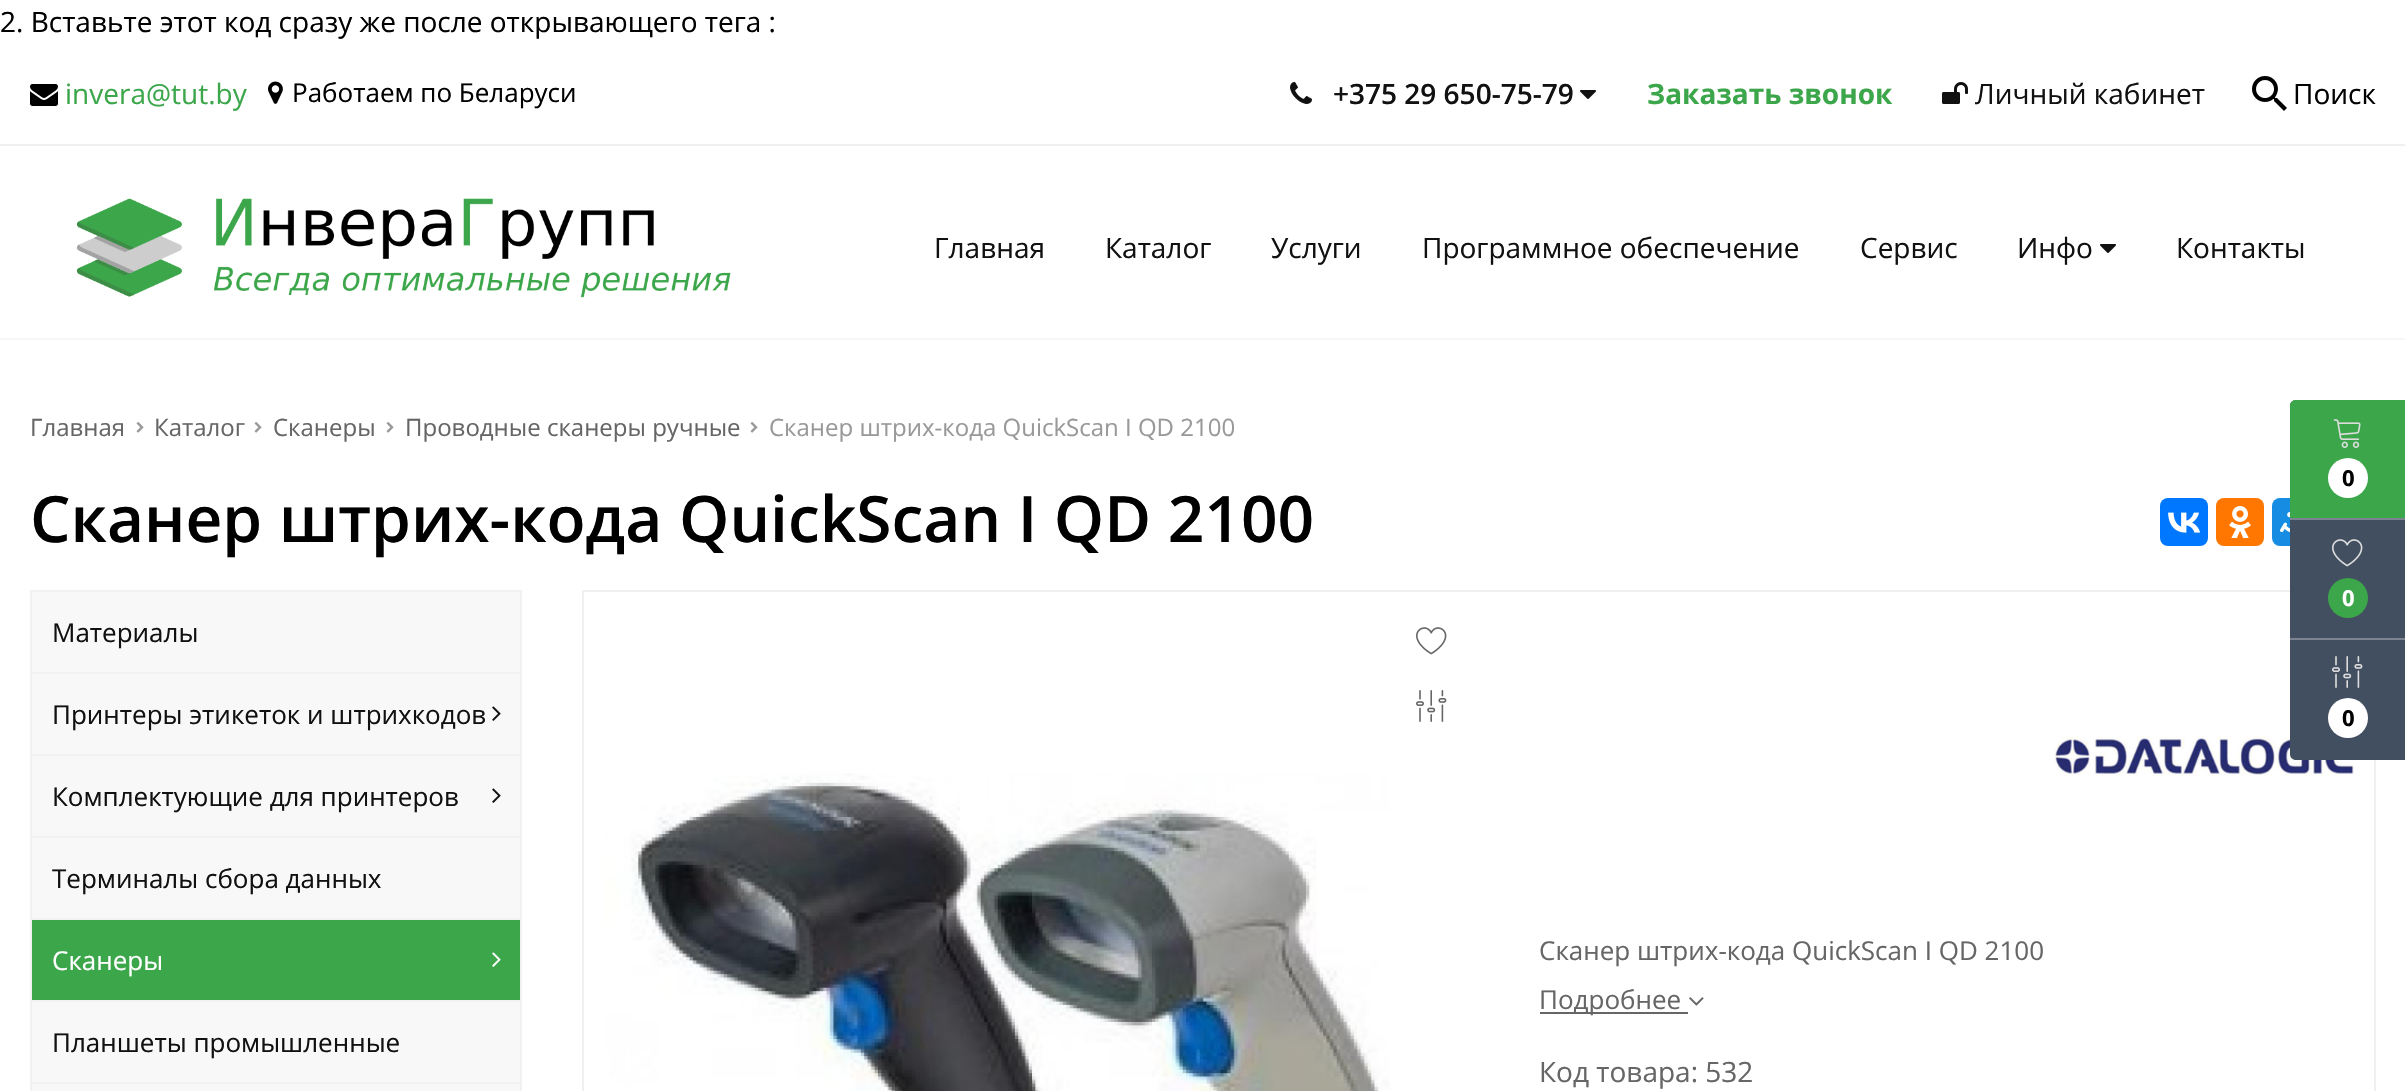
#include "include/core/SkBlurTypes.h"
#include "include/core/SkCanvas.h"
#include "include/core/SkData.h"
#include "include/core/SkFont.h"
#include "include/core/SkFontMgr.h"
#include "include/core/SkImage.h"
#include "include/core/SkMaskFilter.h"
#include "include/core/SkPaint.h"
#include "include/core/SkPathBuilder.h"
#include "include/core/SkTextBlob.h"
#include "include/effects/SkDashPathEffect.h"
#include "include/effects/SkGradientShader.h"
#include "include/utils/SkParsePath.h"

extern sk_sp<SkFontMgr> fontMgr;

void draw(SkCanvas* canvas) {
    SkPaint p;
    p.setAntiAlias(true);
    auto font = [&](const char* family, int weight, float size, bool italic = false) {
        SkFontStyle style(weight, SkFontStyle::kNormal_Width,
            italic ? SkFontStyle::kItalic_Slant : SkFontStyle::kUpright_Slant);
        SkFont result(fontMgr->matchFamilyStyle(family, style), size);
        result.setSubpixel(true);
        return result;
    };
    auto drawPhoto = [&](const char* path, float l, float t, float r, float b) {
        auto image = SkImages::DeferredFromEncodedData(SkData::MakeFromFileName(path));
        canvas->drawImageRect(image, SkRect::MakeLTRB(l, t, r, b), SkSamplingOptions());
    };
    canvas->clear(0xFFFFFFFF);
    auto font1 = font("Open Sans", 400, 28);
    p.setColor(0xFF000000);
    canvas->drawString("2. Вставьте этот код сразу же после открывающего тега :", 0, 32, font1, p);
    p.setColor(0xFFF0F0F0);
    canvas->drawRect(SkRect::MakeLTRB(0, 144, 2405, 146), p);
    drawPhoto("media/1.png", 30, 84, 58, 106);
    p.setColor(0xFF3CA64A);
    canvas->drawString("invera@tut.by", 65, 104, font1, p);
    drawPhoto("media/2.png", 268, 81, 283, 104);
    auto font2 = font("Open Sans", 400, 26);
    p.setColor(0xFF000000);
    canvas->drawString("Работаем по Беларуси", 292, 102, font2, p);
    drawPhoto("media/3.png", 1290, 82, 1312, 104);
    auto font3 = font("Open Sans", 600, 28);
    p.setColor(0xFF111111);
    canvas->drawString("+375 29 650-75-79", 1333, 104, font3, p);
    drawPhoto("media/4.png", 1580, 90, 1596, 99);
    auto font4 = font("Open Sans", 700, 28);
    p.setColor(0xFF3CA64A);
    canvas->drawString("Заказать звонок", 1647, 104, font4, p);
    drawPhoto("media/5.png", 1942, 82, 1968, 104);
    p.setColor(0xFF111111);
    canvas->drawString("Личный кабинет", 1975, 104, font1, p);
    drawPhoto("media/6.png", 2252, 76, 2287, 111);
    p.setColor(0xFF000000);
    canvas->drawString("Поиск", 2293, 104, font1, p);
    p.setColor(0xFFF6F6F6);
    canvas->drawRect(SkRect::MakeLTRB(0, 338, 2405, 340), p);
    drawPhoto("media/7.png", 76, 198, 731, 298);
    p.setColor(0xFF111111);
    {
        const struct { const char* s; float x, y; } items[] = {
            {"Главная", 934, 258},
            {"Каталог", 1105, 258},
            {"Услуги", 1271, 258},
            {"Программное обеспечение", 1422, 258},
            {"Сервис", 1860, 258},
            {"Инфо", 2017, 258},
        };
        for (auto [s, x, y] : items) {
            canvas->drawString(s, x, y, font1, p);
        }
    }
    drawPhoto("media/4.png", 2100, 244, 2116, 253);
    canvas->drawString("Контакты", 2176, 258, font1, p);
    auto font5 = font("Open Sans", 400, 24);
    p.setColor(0xFF666666);
    canvas->drawString("Главная", 30, 436, font5, p);
    drawPhoto("media/8.png", 136, 422, 144, 433);
    canvas->drawString("Каталог", 154, 436, font5, p);
    drawPhoto("media/8.png", 254, 422, 262, 433);
    canvas->drawString("Сканеры", 273, 436, font5, p);
    drawPhoto("media/8.png", 386, 422, 394, 433);
    canvas->drawString("Проводные сканеры ручные", 405, 436, font5, p);
    drawPhoto("media/8.png", 750, 422, 758, 433);
    p.setColor(0xFF999999);
    canvas->drawString("Сканер штрих-кода QuickScan I QD 2100", 769, 436, font5, p);
    auto font6 = font("Open Sans", 600, 64);
    p.setColor(0xFF000000);
    canvas->drawString("Сканер штрих-кода QuickScan I QD 2100", 30, 542, font6, p);
    p.setColor(0xFF0077FF);
    canvas->drawRoundRect(SkRect::MakeLTRB(2160, 498, 2208, 546), 8, 8, p);
    drawPhoto("media/9.png", 2168, 512, 2201, 533);
    p.setColor(0xFFFF7700);
    canvas->drawRoundRect(SkRect::MakeLTRB(2216, 498, 2264, 546), 8, 8, p);
    drawPhoto("media/10.png", 2229, 506, 2251, 538);
    p.setColor(0xFF168DE2);
    canvas->drawRoundRect(SkRect::MakeLTRB(2272, 498, 2320, 546), 8, 8, p);
    drawPhoto("media/11.png", 2280, 512, 2290, 533);
    p.setStyle(SkPaint::kStroke_Style);
    p.setStrokeWidth(2);
    p.setColor(0xFFF0F0F0);
    canvas->drawRect(SkRect::MakeLTRB(583, 591, 2375, 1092), p);
    drawPhoto("media/20.png", 2054, 736, 2354, 776);
    p.setStyle(SkPaint::kFill_Style);
    p.setColor(0xFF424F60);
    canvas->drawPath(SkPathBuilder().moveTo(2296, 400).lineTo(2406, 400).lineTo(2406, 760).lineTo(2296, 760).cubicTo(2292.5f, 760, 2290, 757.5f, 2290, 754).lineTo(2290, 406).cubicTo(2290, 402.5f, 2292.5f, 400, 2296, 400).close().detach(), p);
    p.setColor(0xFF7B8490);
    canvas->drawRect(SkRect::MakeLTRB(2290, 518, 2405, 520), p);
    p.setColor(0xFF3CA64A);
    canvas->drawPath(SkPathBuilder().moveTo(2296, 400).lineTo(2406, 400).lineTo(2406, 518).lineTo(2290, 518).lineTo(2290, 406).cubicTo(2290, 402.5f, 2292.5f, 400, 2296, 400).close().detach(), p);
    drawPhoto("media/12.png", 2333, 419, 2361, 448);
    p.setColor(0xFFFFFFFF);
    canvas->drawCircle(2348, 478, 20, p);
    auto font7 = font("Open Sans", 700, 22);
    p.setColor(0xFF000000);
    canvas->drawString("0", 2342, 486, font7, p);
    p.setColor(0xFF7B8490);
    canvas->drawRect(SkRect::MakeLTRB(2290, 638, 2405, 640), p);
    drawPhoto("media/13.png", 2332, 539, 2363, 567);
    p.setColor(0xFF3CA64A);
    canvas->drawCircle(2348, 598, 20, p);
    p.setColor(0xFFFFFFFF);
    canvas->drawString("0", 2342, 606, font7, p);
    drawPhoto("media/14.png", 2332, 656, 2363, 688);
    canvas->drawCircle(2348, 718, 20, p);
    p.setColor(0xFF000000);
    canvas->drawString("0", 2342, 726, font7, p);
    p.setColor(0xFFF8F8F9);
    canvas->drawRect(SkRect::MakeLTRB(31, 591, 521, 673), p);
    p.setStyle(SkPaint::kStroke_Style);
    p.setColor(0xFFF2F2F2);
    canvas->drawRect(SkRect::MakeLTRB(31, 591, 521, 673), p);
    p.setStyle(SkPaint::kFill_Style);
    p.setColor(0xFF111111);
    canvas->drawString("Материалы", 52, 642, font2, p);
    p.setColor(0xFFF8F8F9);
    canvas->drawRect(SkRect::MakeLTRB(31, 673, 521, 755), p);
    p.setStyle(SkPaint::kStroke_Style);
    p.setColor(0xFFF2F2F2);
    canvas->drawRect(SkRect::MakeLTRB(31, 673, 521, 755), p);
    p.setStyle(SkPaint::kFill_Style);
    p.setColor(0xFF111111);
    canvas->drawString("Принтеры этикеток и штрихкодов", 52, 724, font2, p);
    drawPhoto("media/15.png", 492, 706, 501, 721);
    p.setColor(0xFFF8F8F9);
    canvas->drawRect(SkRect::MakeLTRB(31, 755, 521, 837), p);
    p.setStyle(SkPaint::kStroke_Style);
    p.setColor(0xFFF2F2F2);
    canvas->drawRect(SkRect::MakeLTRB(31, 755, 521, 837), p);
    p.setStyle(SkPaint::kFill_Style);
    p.setColor(0xFF111111);
    canvas->drawString("Комплектующие для принтеров", 52, 806, font2, p);
    drawPhoto("media/15.png", 492, 788, 501, 803);
    p.setColor(0xFFF8F8F9);
    canvas->drawRect(SkRect::MakeLTRB(31, 837, 521, 919), p);
    p.setStyle(SkPaint::kStroke_Style);
    p.setColor(0xFFF2F2F2);
    canvas->drawRect(SkRect::MakeLTRB(31, 837, 521, 919), p);
    p.setStyle(SkPaint::kFill_Style);
    p.setColor(0xFF111111);
    canvas->drawString("Терминалы сбора данных", 52, 888, font2, p);
    p.setColor(0xFF3CA64A);
    canvas->drawRect(SkRect::MakeLTRB(31, 919, 521, 1001), p);
    p.setStyle(SkPaint::kStroke_Style);
    p.setColor(0xFFF2F2F2);
    canvas->drawRect(SkRect::MakeLTRB(31, 919, 521, 1001), p);
    p.setStyle(SkPaint::kFill_Style);
    p.setColor(0xFFFFFFFF);
    canvas->drawString("Сканеры", 52, 970, font2, p);
    drawPhoto("media/16.png", 492, 952, 501, 967);
    p.setColor(0xFFF8F8F9);
    canvas->drawRect(SkRect::MakeLTRB(31, 1001, 521, 1083), p);
    p.setStyle(SkPaint::kStroke_Style);
    p.setColor(0xFFF2F2F2);
    canvas->drawRect(SkRect::MakeLTRB(31, 1001, 521, 1083), p);
    p.setStyle(SkPaint::kFill_Style);
    p.setColor(0xFF111111);
    canvas->drawString("Планшеты промышленные", 52, 1052, font2, p);
    p.setColor(0xFFF8F8F9);
    canvas->drawRect(SkRect::MakeLTRB(31, 1083, 521, 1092), p);
    p.setStyle(SkPaint::kStroke_Style);
    p.setColor(0xFFF2F2F2);
    canvas->drawRect(SkRect::MakeLTRB(31, 1083, 521, 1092), p);
    drawPhoto("media/17.png", 1416, 627, 1447, 655);
    drawPhoto("media/18.png", 1416, 690, 1447, 722);
    drawPhoto("media/19.png", 604, 773, 1390, 1091);
    p.setStyle(SkPaint::kFill_Style);
    p.setColor(0xFF666666);
    canvas->drawString("Сканер штрих-кода QuickScan I QD 2100", 1539, 960, font2, p);
    canvas->drawRect(SkRect::MakeLTRB(1540, 1012, 1688, 1014), p);
    canvas->drawString("Подробнее", 1539, 1009, font2, p);
    drawPhoto("media/21.png", 1689, 997, 1704, 1006);
    canvas->drawString("Код товара: 532", 1539, 1082, font1, p);
}
